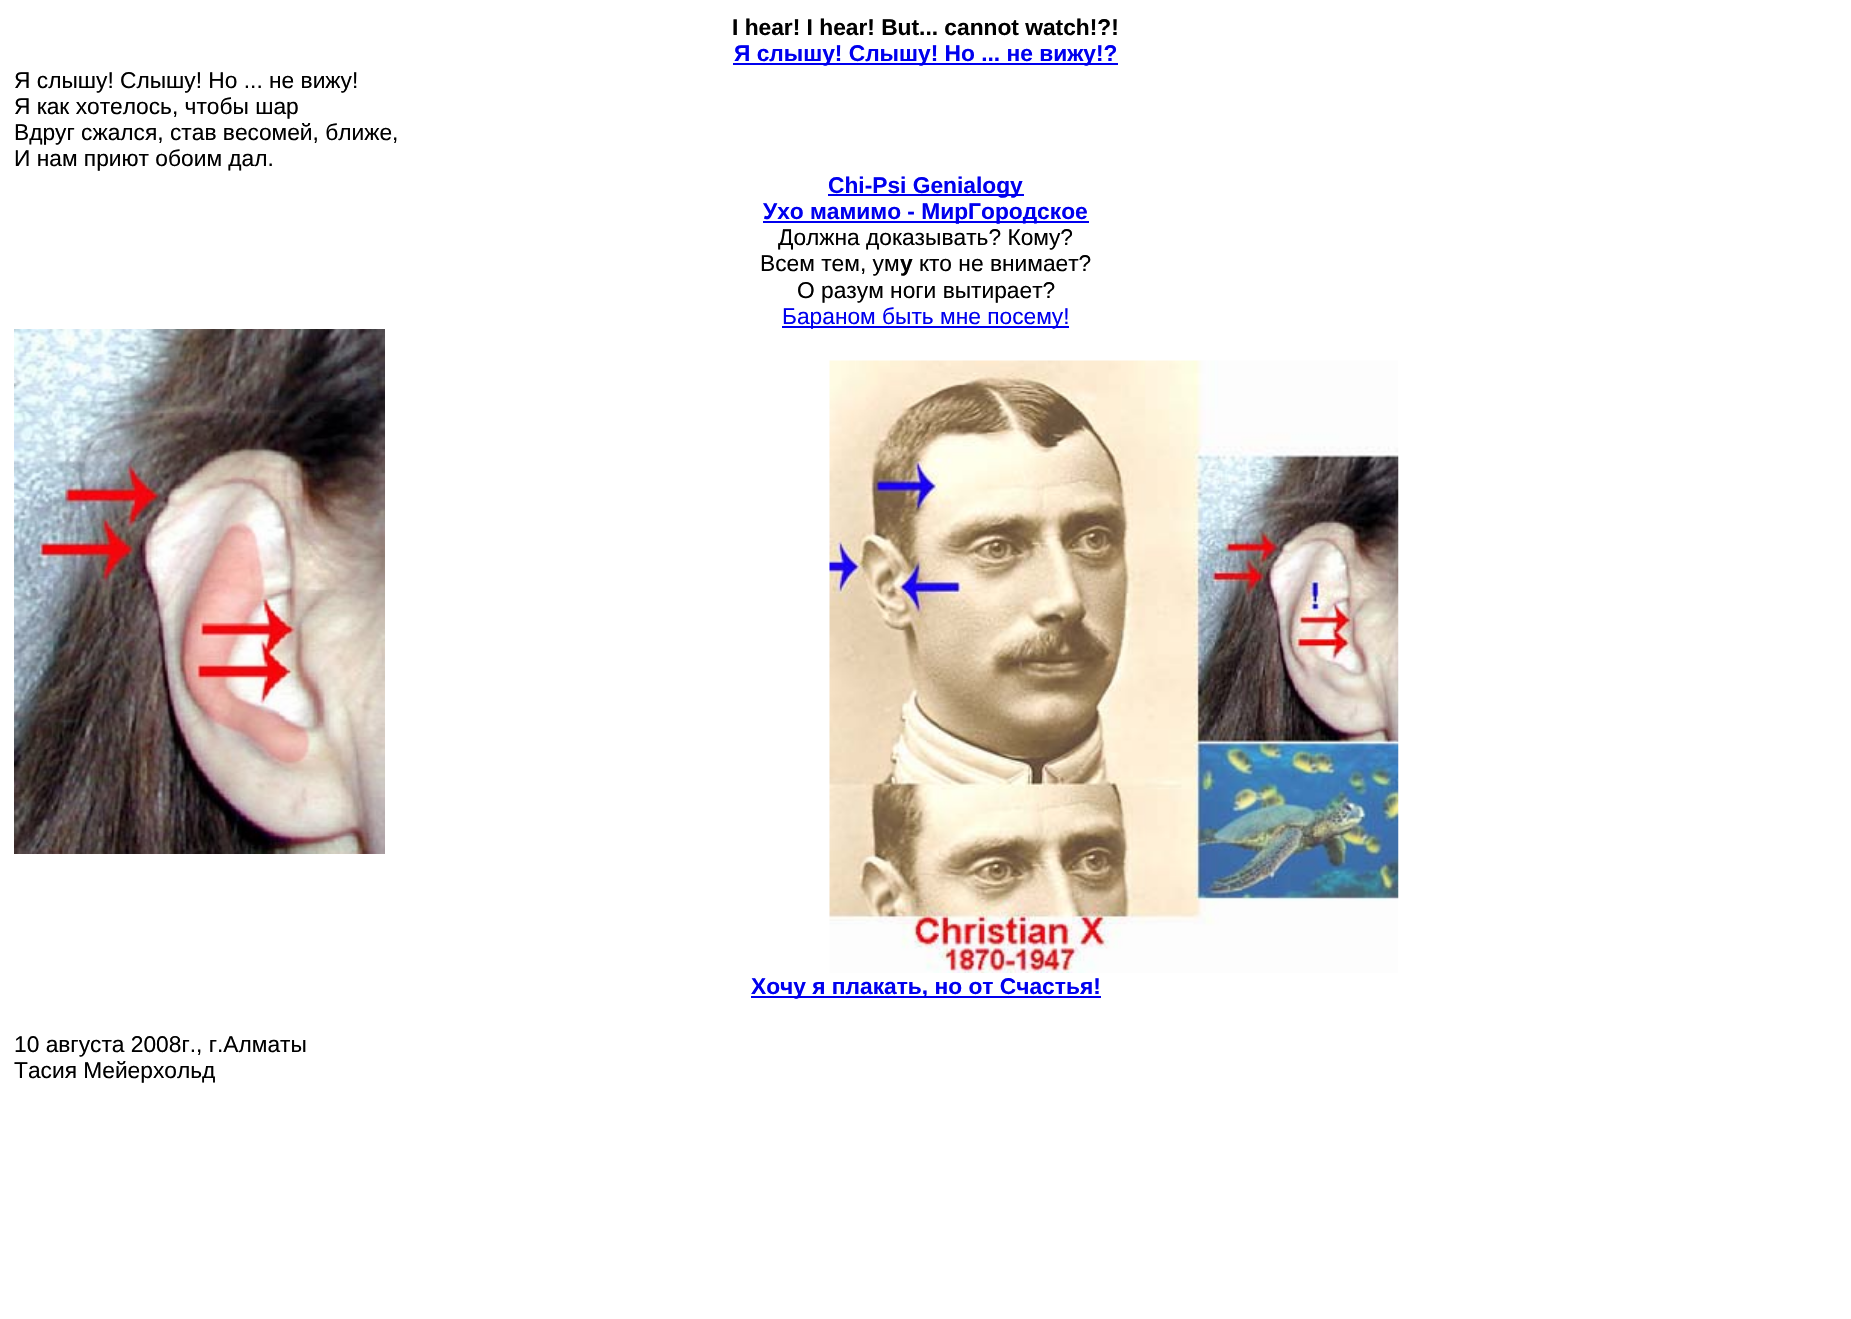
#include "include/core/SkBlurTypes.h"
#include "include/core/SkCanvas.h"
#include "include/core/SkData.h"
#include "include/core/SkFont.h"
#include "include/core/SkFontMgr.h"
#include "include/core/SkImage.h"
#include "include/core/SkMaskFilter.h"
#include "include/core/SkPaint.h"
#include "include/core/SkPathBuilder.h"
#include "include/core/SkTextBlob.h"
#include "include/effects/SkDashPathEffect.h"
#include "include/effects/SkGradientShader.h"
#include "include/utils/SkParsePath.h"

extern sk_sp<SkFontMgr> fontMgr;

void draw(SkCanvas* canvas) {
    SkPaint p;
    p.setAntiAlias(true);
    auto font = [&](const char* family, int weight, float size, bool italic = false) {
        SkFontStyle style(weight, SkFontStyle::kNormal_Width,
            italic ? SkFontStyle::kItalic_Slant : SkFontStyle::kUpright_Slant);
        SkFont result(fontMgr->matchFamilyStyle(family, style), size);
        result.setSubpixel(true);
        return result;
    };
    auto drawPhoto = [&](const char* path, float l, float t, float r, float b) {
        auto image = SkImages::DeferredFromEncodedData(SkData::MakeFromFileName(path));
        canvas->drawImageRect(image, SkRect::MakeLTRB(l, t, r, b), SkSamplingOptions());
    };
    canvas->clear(0xFFFFFFFF);
    auto font1 = font("Liberation Sans", 700, 22.75f);
    p.setColor(0xFF000000);
    canvas->drawString("I hear! I hear! But... cannot watch!?!", 732, 35, font1, p);
    p.setColor(0xFF0000EE);
    canvas->drawRect(SkRect::MakeLTRB(733, 63, 1118, 65), p);
    canvas->drawString("Я слышу! Слышу! Но ... не вижу!?", 734, 61, font1, p);
    auto font2 = font("Liberation Sans", 400, 22.75f);
    p.setColor(0xFF000000);
    {
        const struct { const char* s; float x, y; } items[] = {
            {"Я слышу! Слышу! Но ... не вижу!", 14, 88},
            {"Я как хотелось, чтобы шар", 14, 114},
            {"Вдруг сжался, став весомей, ближе,", 14, 140},
            {"И нам приют обоим дал.", 14, 166},
        };
        for (auto [s, x, y] : items) {
            canvas->drawString(s, x, y, font2, p);
        }
    }
    p.setColor(0xFF0000EE);
    canvas->drawRect(SkRect::MakeLTRB(828, 194, 1024, 196), p);
    canvas->drawString("Chi-Psi Genialogy", 828, 193, font1, p);
    canvas->drawRect(SkRect::MakeLTRB(763, 221, 1089, 223), p);
    canvas->drawString("Ухо мамимо - МирГородское", 763, 219, font1, p);
    p.setColor(0xFF000000);
    canvas->drawString("Должна доказывать? Кому?", 778, 245, font2, p);
    canvas->drawString("Всем тем, ум", 760, 271, font2, p);
    canvas->drawString("у", 900, 271, font1, p);
    canvas->drawString("кто не внимает?", 919, 271, font2, p);
    canvas->drawString("О разум ноги вытирает?", 797, 298, font2, p);
    p.setColor(0xFF0000EE);
    canvas->drawRect(SkRect::MakeLTRB(782, 326, 1069, 328), p);
    canvas->drawString("Бараном быть мне посему!", 782, 324, font2, p);
    drawPhoto("media/1.png", 14, 329, 385, 854);
    drawPhoto("media/2.png", 829, 360, 1399, 973);
    canvas->drawRect(SkRect::MakeLTRB(751, 996, 1101, 998), p);
    canvas->drawString("Хочу я плакать, но от Счастья!", 751, 994, font1, p);
    p.setColor(0xFF000000);
    canvas->drawString("10 августа 2008г., г.Алматы", 14, 1052, font2, p);
    canvas->drawString("Тасия Мейерхольд", 14, 1078, font2, p);
}
